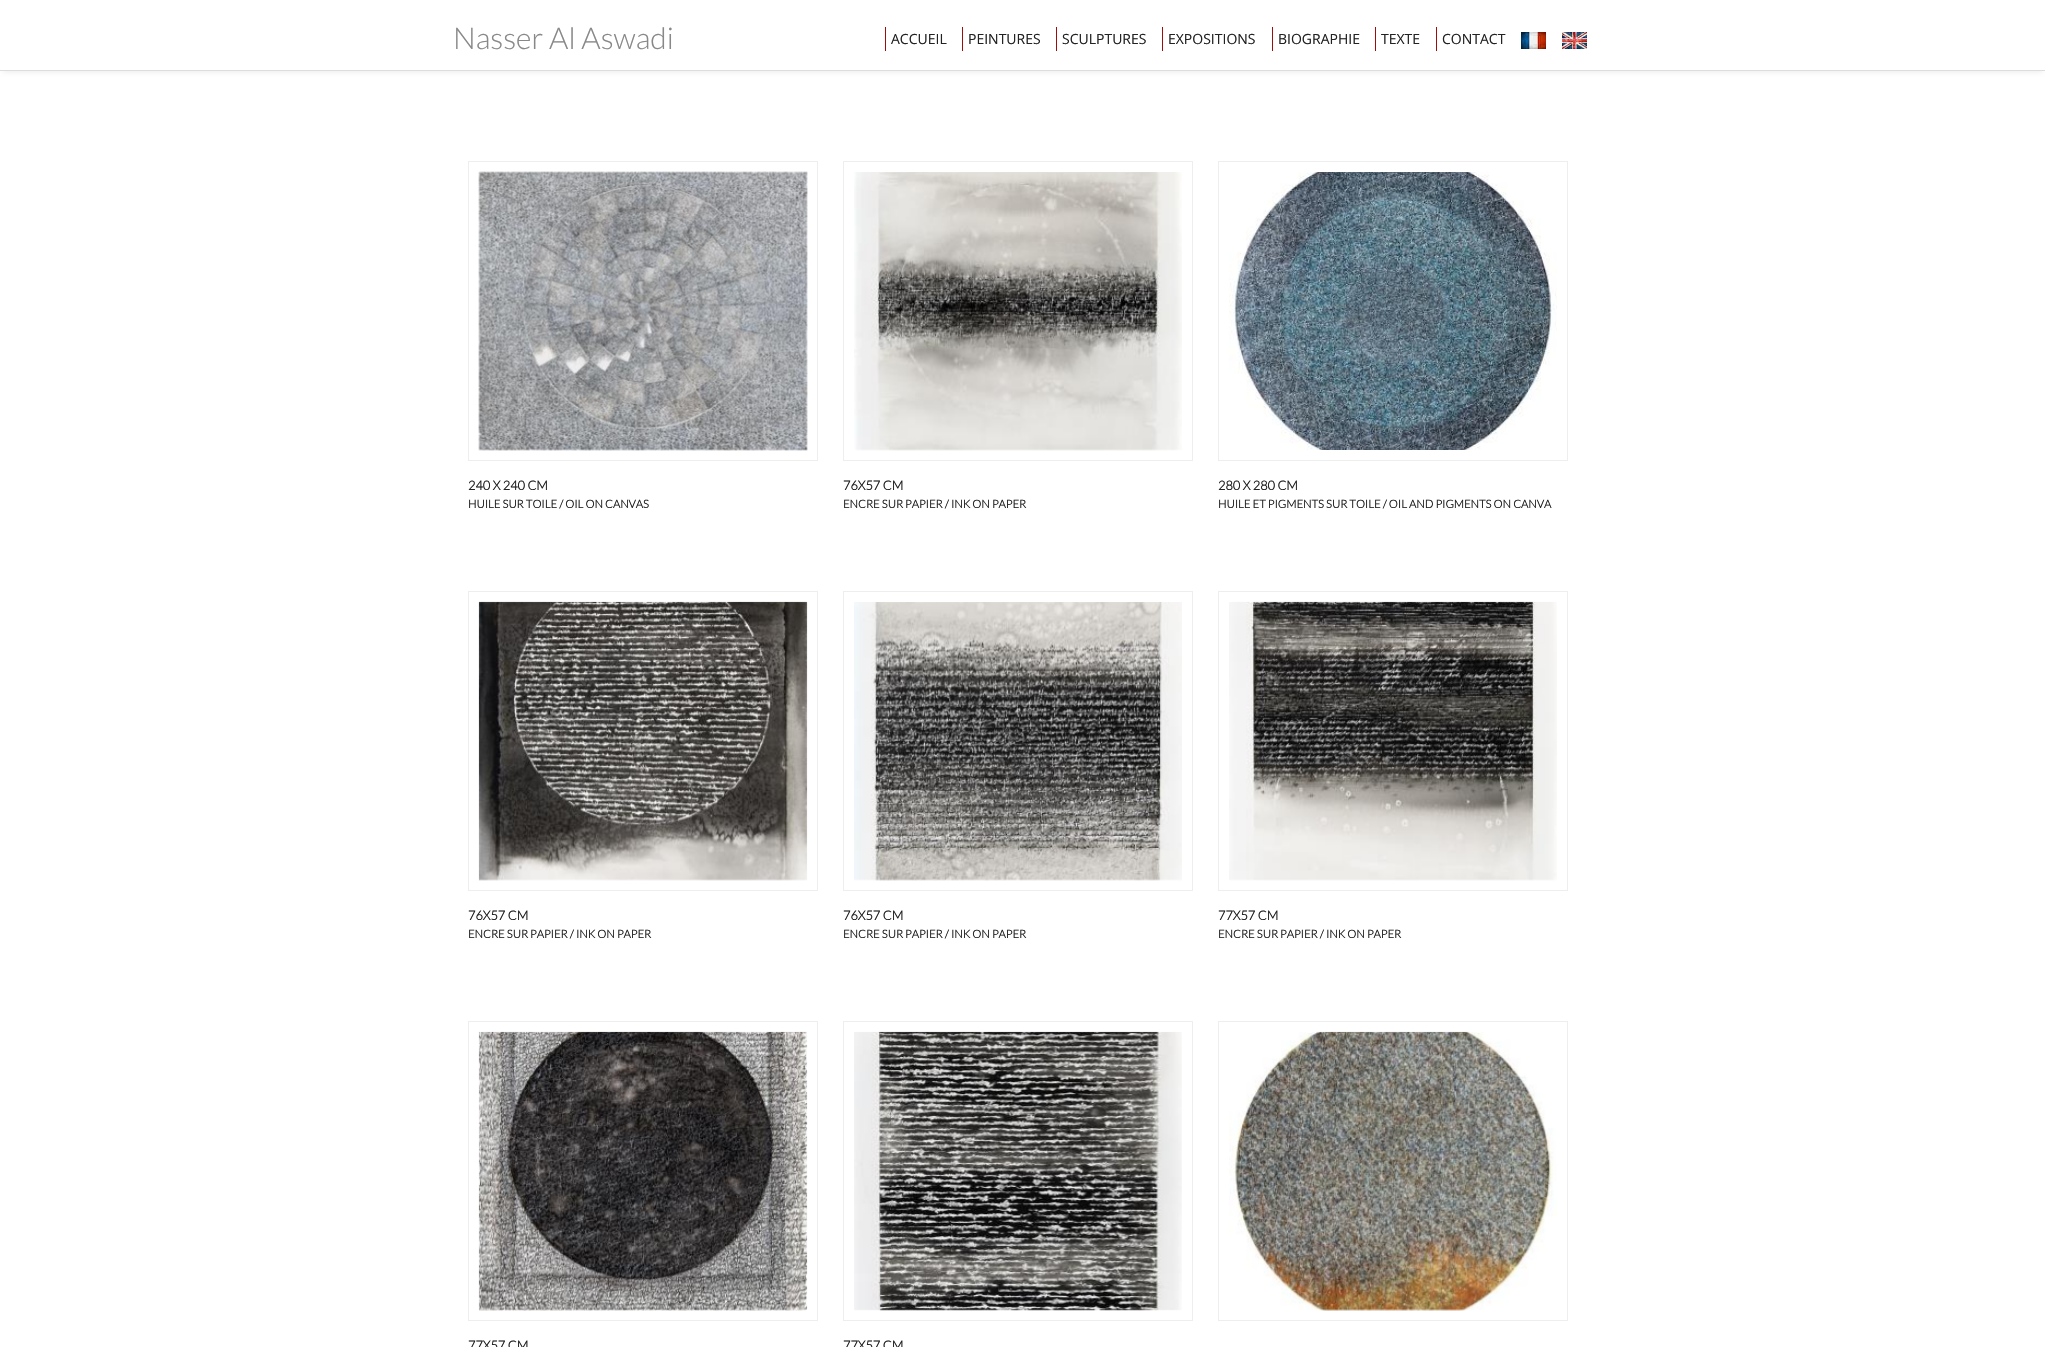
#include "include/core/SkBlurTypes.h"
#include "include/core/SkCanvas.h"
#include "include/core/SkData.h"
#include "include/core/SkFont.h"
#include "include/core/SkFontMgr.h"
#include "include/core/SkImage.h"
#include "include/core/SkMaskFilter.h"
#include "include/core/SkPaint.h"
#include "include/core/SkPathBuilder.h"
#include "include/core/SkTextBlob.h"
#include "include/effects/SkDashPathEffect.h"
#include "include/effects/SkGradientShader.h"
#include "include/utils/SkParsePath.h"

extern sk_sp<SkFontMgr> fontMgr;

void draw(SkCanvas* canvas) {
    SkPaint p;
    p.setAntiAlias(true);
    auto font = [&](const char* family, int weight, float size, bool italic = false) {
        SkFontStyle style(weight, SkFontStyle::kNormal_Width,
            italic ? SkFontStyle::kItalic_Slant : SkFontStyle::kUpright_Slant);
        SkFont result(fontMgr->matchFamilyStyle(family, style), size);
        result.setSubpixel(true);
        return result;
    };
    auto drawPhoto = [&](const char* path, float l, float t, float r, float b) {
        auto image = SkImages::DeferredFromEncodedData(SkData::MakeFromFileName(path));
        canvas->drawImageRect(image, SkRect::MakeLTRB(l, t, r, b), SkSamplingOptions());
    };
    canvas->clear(0xFFFFFFFF);
    canvas->save();
    canvas->clipRect(SkRect::MakeLTRB(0, 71, 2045, 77));
    p.setColor(0xFFECECEC);
    p.setMaskFilter(SkMaskFilter::MakeBlur(kNormal_SkBlurStyle, 2.5f));
    canvas->drawRect(SkRect::MakeLTRB(3, 7, 2042, 72), p);
    p.setMaskFilter(nullptr);
    canvas->restore();
    p.setColor(0xFFDDDDDD);
    canvas->drawRect(SkRect::MakeLTRB(0, 70, 2045, 71), p);
    auto font1 = font("Lato", 300, 30);
    p.setColor(0xFF888888);
    canvas->drawString("Nasser Al Aswadi", 453, 49, font1, p);
    p.setColor(0xFF9D0D0D);
    canvas->drawRect(SkRect::MakeLTRB(885, 27, 886, 51), p);
    auto font2 = font("Open Sans", 400, 14);
    p.setColor(0xFF222222);
    canvas->drawString("ACCUEIL", 891, 44, font2, p);
    p.setColor(0xFF9D0D0D);
    canvas->drawRect(SkRect::MakeLTRB(962, 27, 963, 51), p);
    p.setColor(0xFF222222);
    canvas->drawString("PEINTURES", 968, 44, font2, p);
    p.setColor(0xFF9D0D0D);
    canvas->drawRect(SkRect::MakeLTRB(1056, 27, 1057, 51), p);
    p.setColor(0xFF222222);
    canvas->drawString("SCULPTURES", 1062, 44, font2, p);
    p.setColor(0xFF9D0D0D);
    canvas->drawRect(SkRect::MakeLTRB(1162, 27, 1163, 51), p);
    p.setColor(0xFF222222);
    canvas->drawString("EXPOSITIONS", 1168, 44, font2, p);
    p.setColor(0xFF9D0D0D);
    canvas->drawRect(SkRect::MakeLTRB(1272, 27, 1273, 51), p);
    p.setColor(0xFF222222);
    canvas->drawString("BIOGRAPHIE", 1278, 44, font2, p);
    p.setColor(0xFF9D0D0D);
    canvas->drawRect(SkRect::MakeLTRB(1375, 27, 1376, 51), p);
    p.setColor(0xFF222222);
    canvas->drawString("TEXTE", 1381, 44, font2, p);
    p.setColor(0xFF9D0D0D);
    canvas->drawRect(SkRect::MakeLTRB(1436, 27, 1437, 51), p);
    p.setColor(0xFF222222);
    canvas->drawString("CONTACT", 1442, 44, font2, p);
    drawPhoto("media/1.png", 1521, 32, 1546, 49);
    drawPhoto("media/2.png", 1562, 32, 1587, 49);
    p.setStyle(SkPaint::kStroke_Style);
    p.setStrokeWidth(1);
    p.setColor(0xFFEEEEEE);
    canvas->drawRect(SkRect::MakeLTRB(468.5f, 161.5f, 817.5f, 460.5f), p);
    drawPhoto("media/3.png", 478, 171, 808, 451);
    auto font3 = font("Lato", 700, 12.75f);
    p.setStyle(SkPaint::kFill_Style);
    p.setColor(0xFF222222);
    canvas->drawString("240 X 240 CM", 468, 490, font3, p);
    auto font4 = font("Lato", 700, 11.2f);
    canvas->drawString("HUILE SUR TOILE / OIL ON CANVAS", 468, 508, font4, p);
    p.setStyle(SkPaint::kStroke_Style);
    p.setColor(0xFFEEEEEE);
    canvas->drawRect(SkRect::MakeLTRB(843.5f, 161.5f, 1192.5f, 460.5f), p);
    drawPhoto("media/4.png", 854, 172, 1182, 451);
    p.setStyle(SkPaint::kFill_Style);
    p.setColor(0xFF222222);
    canvas->drawString("76X57 CM", 843, 490, font3, p);
    canvas->drawString("ENCRE SUR PAPIER / INK ON PAPER", 843, 508, font4, p);
    p.setStyle(SkPaint::kStroke_Style);
    p.setColor(0xFFEEEEEE);
    canvas->drawRect(SkRect::MakeLTRB(1218.5f, 161.5f, 1567.5f, 460.5f), p);
    drawPhoto("media/5.png", 1229, 172, 1557, 450);
    p.setStyle(SkPaint::kFill_Style);
    p.setColor(0xFF222222);
    canvas->drawString("280 X 280 CM", 1218, 490, font3, p);
    canvas->drawString("HUILE ET PIGMENTS SUR TOILE / OIL AND PIGMENTS ON CANVA", 1218, 508, font4, p);
    p.setStyle(SkPaint::kStroke_Style);
    p.setColor(0xFFEEEEEE);
    canvas->drawRect(SkRect::MakeLTRB(468.5f, 591.5f, 817.5f, 890.5f), p);
    drawPhoto("media/6.png", 478, 601, 808, 881);
    p.setStyle(SkPaint::kFill_Style);
    p.setColor(0xFF222222);
    canvas->drawString("76X57 CM", 468, 920, font3, p);
    canvas->drawString("ENCRE SUR PAPIER / INK ON PAPER", 468, 938, font4, p);
    p.setStyle(SkPaint::kStroke_Style);
    p.setColor(0xFFEEEEEE);
    canvas->drawRect(SkRect::MakeLTRB(843.5f, 591.5f, 1192.5f, 890.5f), p);
    drawPhoto("media/7.png", 854, 602, 1182, 881);
    p.setStyle(SkPaint::kFill_Style);
    p.setColor(0xFF222222);
    canvas->drawString("76X57 CM", 843, 920, font3, p);
    canvas->drawString("ENCRE SUR PAPIER / INK ON PAPER", 843, 938, font4, p);
    p.setStyle(SkPaint::kStroke_Style);
    p.setColor(0xFFEEEEEE);
    canvas->drawRect(SkRect::MakeLTRB(1218.5f, 591.5f, 1567.5f, 890.5f), p);
    drawPhoto("media/8.png", 1229, 601, 1557, 881);
    p.setStyle(SkPaint::kFill_Style);
    p.setColor(0xFF222222);
    canvas->drawString("77X57 CM", 1218, 920, font3, p);
    canvas->drawString("ENCRE SUR PAPIER / INK ON PAPER", 1218, 938, font4, p);
    p.setStyle(SkPaint::kStroke_Style);
    p.setColor(0xFFEEEEEE);
    canvas->drawRect(SkRect::MakeLTRB(1218.5f, 1021.5f, 1567.5f, 1320.5f), p);
    drawPhoto("media/9.png", 1229, 1031, 1557, 1311);
    canvas->drawRect(SkRect::MakeLTRB(468.5f, 1021.5f, 817.5f, 1320.5f), p);
    drawPhoto("media/10.png", 478, 1031, 808, 1311);
    p.setStyle(SkPaint::kFill_Style);
    p.setColor(0xFF222222);
    canvas->drawString("77X57 CM", 468, 1350, font3, p);
    p.setStyle(SkPaint::kStroke_Style);
    p.setColor(0xFFEEEEEE);
    canvas->drawRect(SkRect::MakeLTRB(843.5f, 1021.5f, 1192.5f, 1320.5f), p);
    drawPhoto("media/11.png", 854, 1031, 1182, 1311);
    p.setStyle(SkPaint::kFill_Style);
    p.setColor(0xFF222222);
    canvas->drawString("77X57 CM", 843, 1350, font3, p);
}
